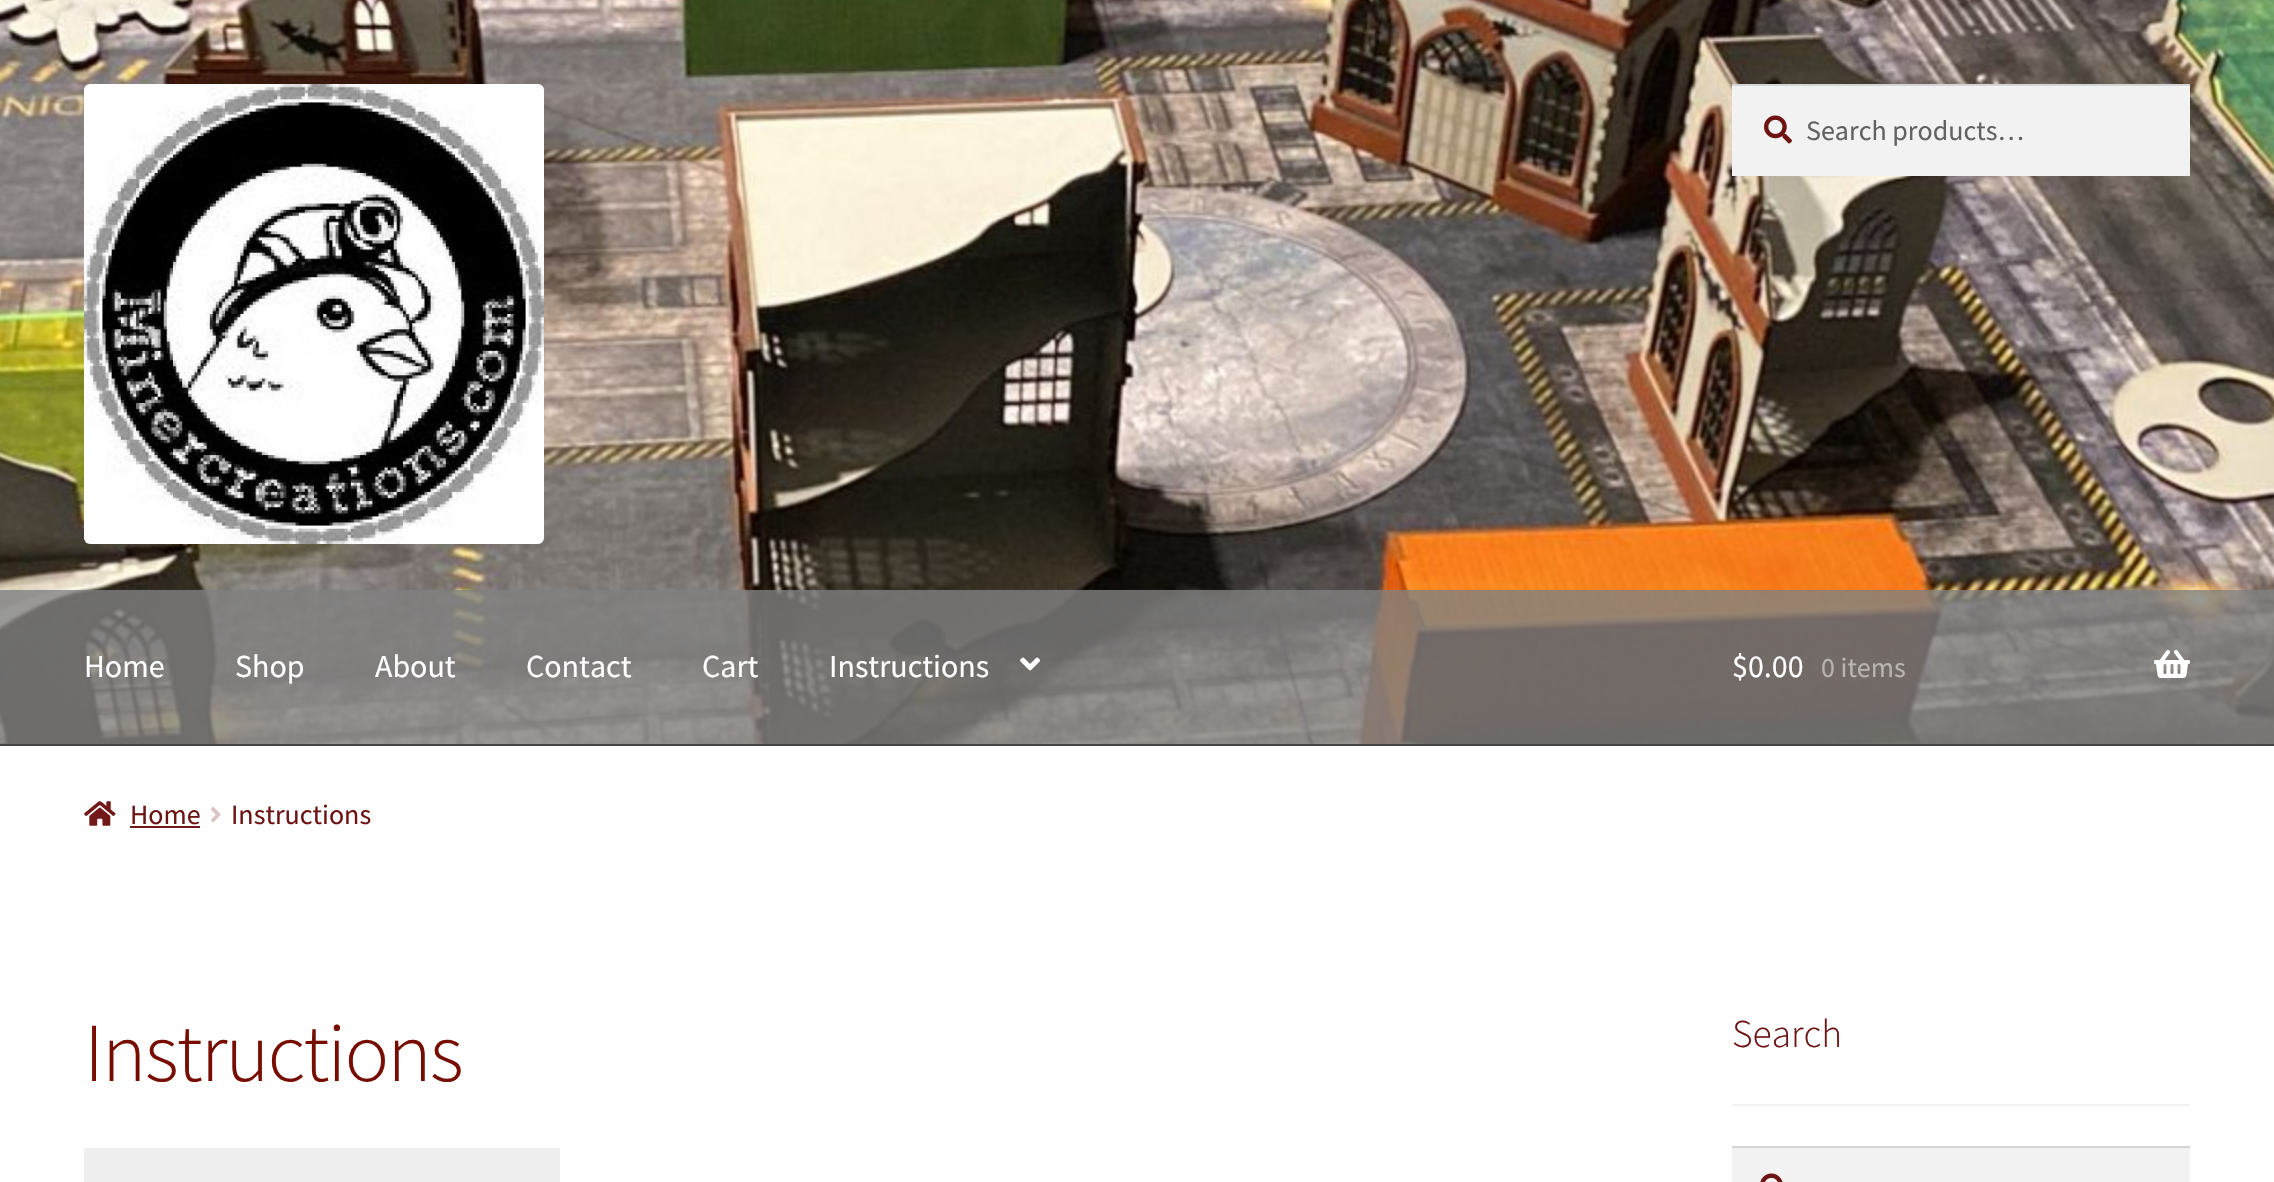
#include "include/core/SkBlurTypes.h"
#include "include/core/SkCanvas.h"
#include "include/core/SkData.h"
#include "include/core/SkFont.h"
#include "include/core/SkFontMgr.h"
#include "include/core/SkImage.h"
#include "include/core/SkMaskFilter.h"
#include "include/core/SkPaint.h"
#include "include/core/SkPathBuilder.h"
#include "include/core/SkTextBlob.h"
#include "include/effects/SkDashPathEffect.h"
#include "include/effects/SkGradientShader.h"
#include "include/utils/SkParsePath.h"

extern sk_sp<SkFontMgr> fontMgr;

void draw(SkCanvas* canvas) {
    SkPaint p;
    p.setAntiAlias(true);
    auto font = [&](const char* family, int weight, float size, bool italic = false) {
        SkFontStyle style(weight, SkFontStyle::kNormal_Width,
            italic ? SkFontStyle::kItalic_Slant : SkFontStyle::kUpright_Slant);
        SkFont result(fontMgr->matchFamilyStyle(family, style), size);
        result.setSubpixel(true);
        return result;
    };
    auto drawTracked = [&](const char* s, float x, float y, const SkFont& font, const SkPaint& ink, float letter, float word) {
        std::vector<SkGlyphID> glyphs(font.countText(s, strlen(s), SkTextEncoding::kUTF8));
        std::vector<float> xs(glyphs.size());
        font.textToGlyphs(s, strlen(s), SkTextEncoding::kUTF8, glyphs);
        font.getXPos(glyphs, xs, x);
        float extra = 0;
        for (size_t i = 0; i < glyphs.size(); i++) {
            xs[i] += extra;
            extra += letter + word * (glyphs[i] == font.unicharToGlyph(' '));
        }
        canvas->drawTextBlob(SkTextBlob::MakeFromPosHGlyphs(glyphs, xs, y, font), 0, 0, ink);
    };
    auto drawPhoto = [&](const char* path, float l, float t, float r, float b) {
        auto image = SkImages::DeferredFromEncodedData(SkData::MakeFromFileName(path));
        canvas->drawImageRect(image, SkRect::MakeLTRB(l, t, r, b), SkSamplingOptions());
    };
    canvas->clear(0xFFFFFFFF);
    drawPhoto("media/1.png", 0, 0, 2274, 744);
    p.setColor(0xFF474747);
    canvas->drawRect(SkRect::MakeLTRB(0, 744, 2274, 746), p);
    drawPhoto("media/2.png", 84, 84, 544, 544);
    p.setColor(0xFFF2F2F2);
    canvas->drawRect(SkRect::MakeLTRB(1732, 86, 2190, 176), p);
    drawPhoto("media/3.png", 1764, 115, 1792, 144);
    p.setColor(0xFFD4D4D4);
    canvas->drawRect(SkRect::MakeLTRB(1732, 84, 2190, 86), p);
    auto font1 = font("Source Sans Pro", 400, 28);
    p.setColor(0xFF616161);
    canvas->drawString("Search products…", 1806, 140, font1, p);
    p.setColor(0xCC808080);
    canvas->drawRect(SkRect::MakeLTRB(0, 590, 2274, 744), p);
    auto font2 = font("Source Sans Pro", 400, 32);
    p.setColor(0xFFFFFFFF);
    {
        const struct { const char* s; float x, y; } items[] = {
            {"Home", 84, 677},
            {"Shop", 235, 677},
            {"About", 375, 677},
            {"Contact", 526, 677},
            {"Cart", 702, 677},
            {"Instructions", 829, 677},
        };
        for (auto [s, x, y] : items) {
            canvas->drawString(s, x, y, font2, p);
        }
    }
    drawPhoto("media/4.png", 1020, 657, 1040, 671);
    canvas->drawString("$0.00", 1732, 677, font2, p);
    p.setColor(0xFFB9B5B3);
    canvas->drawString("0 items", 1821, 677, font1, p);
    drawPhoto("media/5.png", 2154, 650, 2190, 678);
    drawPhoto("media/6.png", 84, 801, 116, 826);
    p.setColor(0xFF6D1313);
    canvas->drawString("Home", 130, 824, font1, p);
    p.setColor(0xFF721818);
    canvas->drawRect(SkRect::MakeLTRB(130, 826, 200, 828), p);
    drawPhoto("media/7.png", 211, 807, 221, 823);
    p.setColor(0xFF6D1313);
    canvas->drawString("Instructions", 231, 824, font1, p);
    auto font3 = font("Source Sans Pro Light", 300, 83.75f);
    p.setColor(0xFF770D01);
    drawTracked("Instructions", 84, 1081, font3, p, -2, 0);
    p.setColor(0xFFEEEEEE);
    canvas->drawRect(SkRect::MakeLTRB(84, 1148, 560, 1182), p);
    p.setColor(0xFFF2F2F2);
    canvas->drawRect(SkRect::MakeLTRB(1732, 1104, 2190, 1106), p);
    auto font4 = font("Source Sans Pro Light", 300, 39.5f);
    p.setColor(0xFF6D1313);
    canvas->drawString("Search", 1732, 1047, font4, p);
    p.setColor(0xFFF2F2F2);
    canvas->drawRect(SkRect::MakeLTRB(1732, 1148, 2190, 1182), p);
    p.setColor(0xFFD4D4D4);
    canvas->drawRect(SkRect::MakeLTRB(1732, 1146, 2190, 1148), p);
    drawPhoto("media/8.png", 1760, 1173, 1783, 1182);
}
